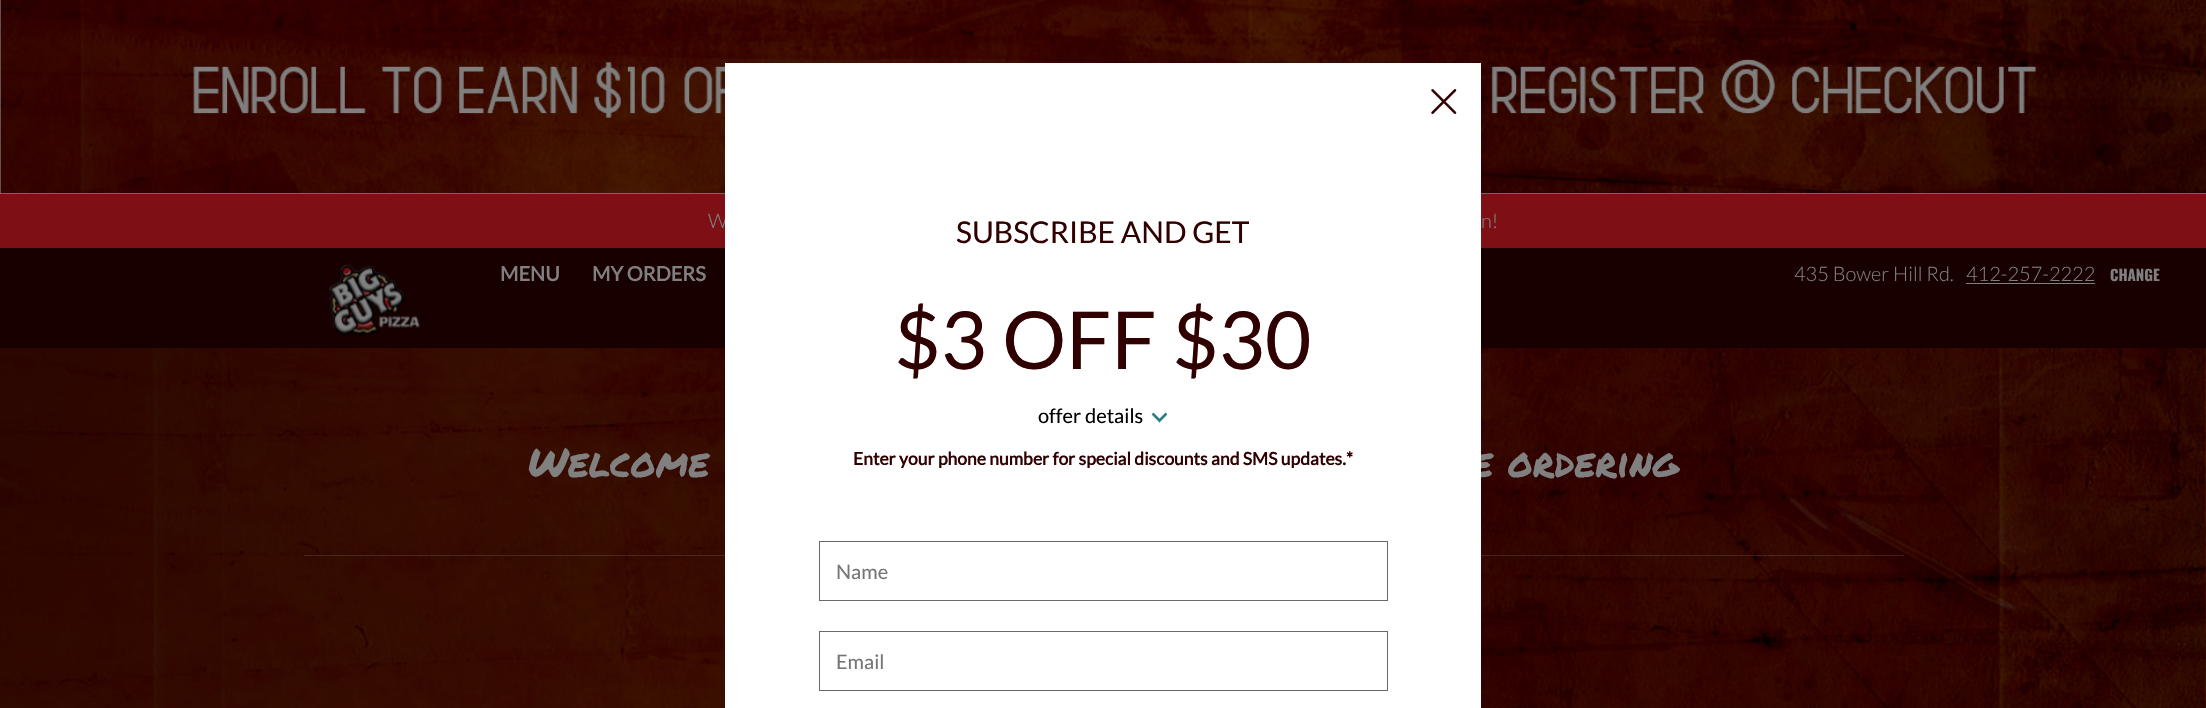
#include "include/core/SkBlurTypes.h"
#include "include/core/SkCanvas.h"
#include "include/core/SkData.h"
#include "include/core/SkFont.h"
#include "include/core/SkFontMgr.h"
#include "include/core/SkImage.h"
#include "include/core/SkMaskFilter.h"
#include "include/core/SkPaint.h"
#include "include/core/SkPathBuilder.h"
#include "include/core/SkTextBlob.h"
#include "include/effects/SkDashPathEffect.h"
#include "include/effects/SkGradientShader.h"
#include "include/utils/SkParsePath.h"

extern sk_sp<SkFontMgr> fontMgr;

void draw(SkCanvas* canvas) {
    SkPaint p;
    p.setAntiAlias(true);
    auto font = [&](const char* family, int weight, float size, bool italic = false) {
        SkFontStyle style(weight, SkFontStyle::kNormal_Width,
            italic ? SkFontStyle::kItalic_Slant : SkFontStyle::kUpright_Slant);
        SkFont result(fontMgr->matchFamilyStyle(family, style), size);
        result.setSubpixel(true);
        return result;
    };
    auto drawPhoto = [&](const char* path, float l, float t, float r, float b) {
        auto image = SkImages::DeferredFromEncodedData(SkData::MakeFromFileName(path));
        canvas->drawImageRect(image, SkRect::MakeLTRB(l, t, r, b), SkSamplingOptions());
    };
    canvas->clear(0xFF808080);
    drawPhoto("media/1.png", 0, 0, 2206, 194);
    p.setColor(0xFF180000);
    canvas->drawRect(SkRect::MakeLTRB(0, 248, 2206, 348), p);
    p.setColor(0xFF7E1015);
    canvas->drawRect(SkRect::MakeLTRB(0, 194, 2206, 248), p);
    auto font1 = font("Lato", 300, 20);
    p.setColor(0xFF808080);
    canvas->drawString("W", 708, 228, font1, p);
    canvas->drawString("n!", 1481, 228, font1, p);
    drawPhoto("media/2.png", 329, 264, 421, 336);
    auto font2 = font("Lato", 700, 20);
    canvas->drawString("MENU", 500, 281, font2, p);
    canvas->drawString("MY ORDERS", 592, 281, font2, p);
    canvas->drawString("435 Bower Hill Rd.", 1794, 281, font1, p);
    canvas->drawString("412-257-2222", 1966, 281, font1, p);
    canvas->drawRect(SkRect::MakeLTRB(1966, 283, 2095, 284), p);
    auto font3 = font("Oswald", 700, 15);
    canvas->drawString("CHANGE", 2110, 281, font3, p);
    drawPhoto("media/3.png", 0, 348, 2206, 708);
    auto font4 = font("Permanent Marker", 400, 40);
    canvas->drawString("Welcome", 528, 477, font4, p);
    canvas->drawString("e ordering", 1472, 477, font4, p);
    p.setColor(0x40808080);
    canvas->drawRect(SkRect::MakeLTRB(304, 555, 1904, 556), p);
    p.setColor(0xFFFFFFFF);
    canvas->drawRect(SkRect::MakeLTRB(725, 63, 1481, 708), p);
    drawPhoto("media/4.png", 1431, 89, 1457, 114);
    auto font5 = font("Lato", 400, 30);
    p.setColor(0xFF300000);
    canvas->drawString("SUBSCRIBE AND GET", 956, 243, font5, p);
    auto font6 = font("Lato", 400, 80);
    canvas->drawString("$3 OFF $30", 894, 369, font6, p);
    auto font7 = font("Lato", 400, 20);
    p.setColor(0xFF000000);
    canvas->drawString("offer details", 1038, 423, font7, p);
    p.setStyle(SkPaint::kStroke_Style);
    p.setStrokeWidth(2.5f);
    p.setColor(0xFF287F89);
    canvas->drawPath(SkPathBuilder().moveTo(1152.5f, 413.5f).lineTo(1160.5f, 421.5f).moveTo(1166.5f, 413.5f).lineTo(1158.5f, 421.5f).detach(), p);
    auto font8 = font("Lato", 700, 17.5f);
    p.setStyle(SkPaint::kFill_Style);
    p.setColor(0xFF300000);
    canvas->drawString("Enter your phone number for special discounts and SMS updates.*", 853, 465, font8, p);
    p.setStyle(SkPaint::kStroke_Style);
    p.setStrokeWidth(1);
    p.setColor(0xFF6A6A6A);
    canvas->drawRect(SkRect::MakeLTRB(819.5f, 541.5f, 1387.5f, 600.5f), p);
    p.setStyle(SkPaint::kFill_Style);
    p.setColor(0xFF757575);
    canvas->drawString("Name", 836, 579, font7, p);
    p.setStyle(SkPaint::kStroke_Style);
    p.setColor(0xFF6A6A6A);
    canvas->drawRect(SkRect::MakeLTRB(819.5f, 631.5f, 1387.5f, 690.5f), p);
    p.setStyle(SkPaint::kFill_Style);
    p.setColor(0xFF757575);
    canvas->drawString("Email", 836, 669, font7, p);
}
